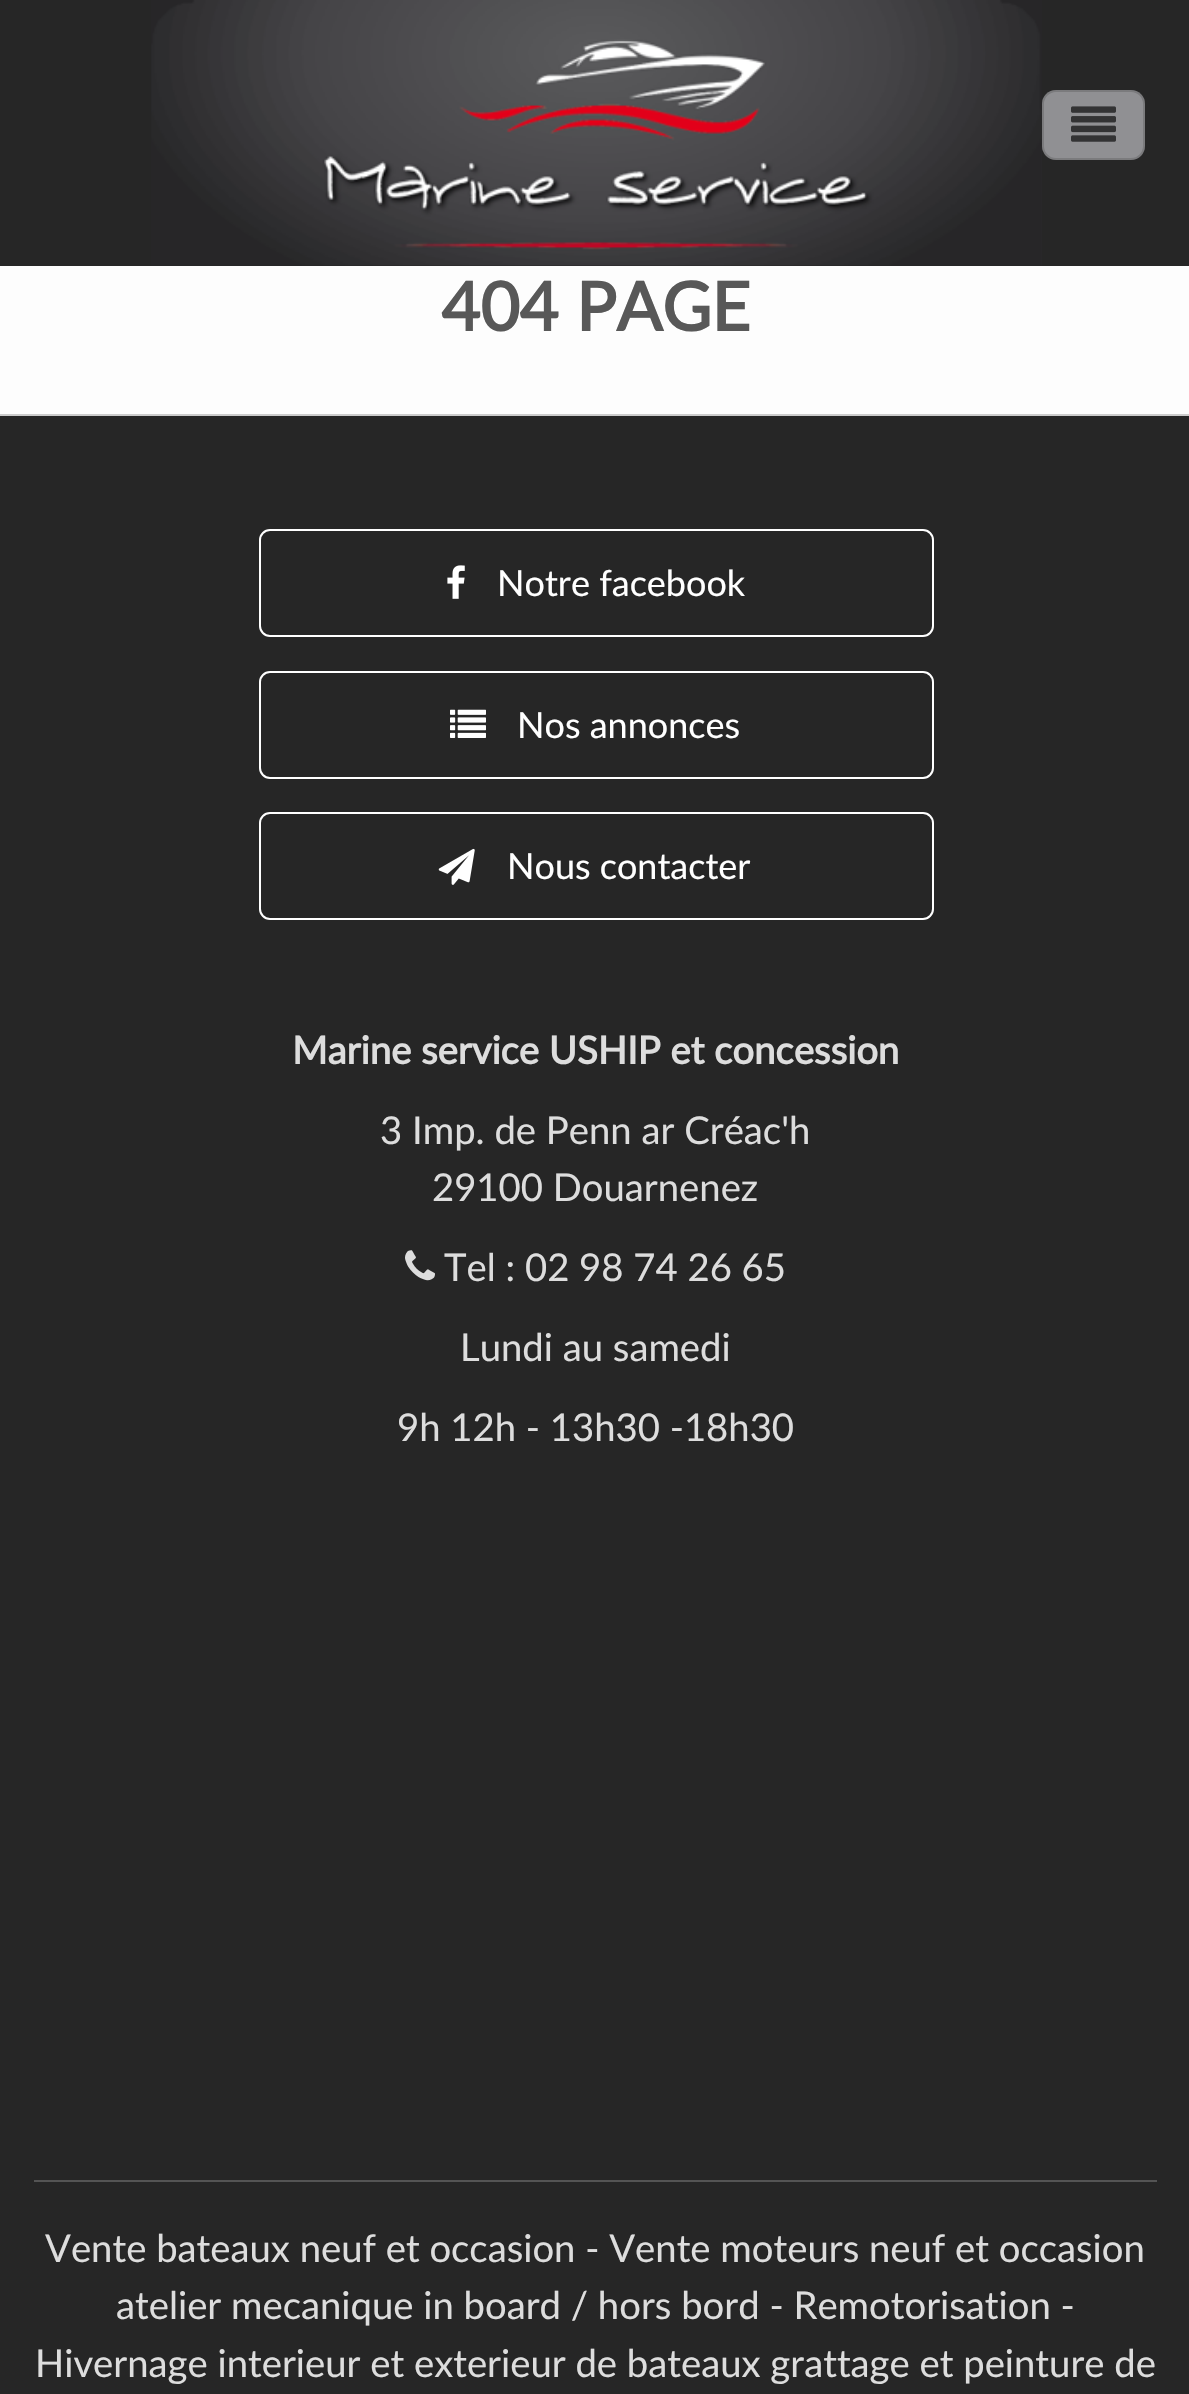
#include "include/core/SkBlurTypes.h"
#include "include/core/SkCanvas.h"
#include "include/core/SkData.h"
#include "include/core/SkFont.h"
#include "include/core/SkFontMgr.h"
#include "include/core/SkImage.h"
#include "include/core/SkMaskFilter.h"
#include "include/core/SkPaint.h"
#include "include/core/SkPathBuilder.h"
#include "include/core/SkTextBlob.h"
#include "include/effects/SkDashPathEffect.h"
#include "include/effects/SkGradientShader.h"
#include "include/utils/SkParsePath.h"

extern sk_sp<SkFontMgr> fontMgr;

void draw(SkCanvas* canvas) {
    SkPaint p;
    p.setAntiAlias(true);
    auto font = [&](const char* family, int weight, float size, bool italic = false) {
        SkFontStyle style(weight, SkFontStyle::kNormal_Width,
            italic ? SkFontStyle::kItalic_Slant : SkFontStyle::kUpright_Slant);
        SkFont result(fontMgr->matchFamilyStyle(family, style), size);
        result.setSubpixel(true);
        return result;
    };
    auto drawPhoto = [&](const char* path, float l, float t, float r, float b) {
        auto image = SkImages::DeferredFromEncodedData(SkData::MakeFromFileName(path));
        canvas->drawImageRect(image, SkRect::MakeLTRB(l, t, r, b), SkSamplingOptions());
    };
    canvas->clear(0xFFFDFDFD);
    p.setColor(0xFF262626);
    canvas->drawRect(SkRect::MakeLTRB(0, 0, 1189, 266), p);
    drawPhoto("media/1.png", 151, 0, 1042, 266);
    p.setColor(0xFF909093);
    canvas->drawRoundRect(SkRect::MakeLTRB(1042, 90, 1145, 160), 14, 14, p);
    p.setStyle(SkPaint::kStroke_Style);
    p.setStrokeWidth(2);
    p.setColor(0x26000000);
    canvas->drawRoundRect(SkRect::MakeLTRB(1043, 91, 1144, 159), 13, 13, p);
    drawPhoto("media/2.png", 1071, 106, 1116, 142);
    auto font1 = font("Lato", 700, 67.5f);
    p.setStyle(SkPaint::kFill_Style);
    p.setColor(0xFF585858);
    canvas->drawString("404 PAGE", 441, 331, font1, p);
    p.setColor(0xFF262626);
    canvas->drawRect(SkRect::MakeLTRB(0, 416, 1189, 2394), p);
    p.setColor(0xFFCCCCCC);
    canvas->drawRect(SkRect::MakeLTRB(0, 414, 1189, 416), p);
    p.setStyle(SkPaint::kStroke_Style);
    p.setColor(0xFFFFFFFF);
    canvas->drawRoundRect(SkRect::MakeLTRB(260, 530, 933, 636), 10, 10, p);
    drawPhoto("media/3.png", 447, 565, 465, 599);
    auto font2 = font("Lato", 400, 36);
    p.setStyle(SkPaint::kFill_Style);
    canvas->drawString("Notre facebook", 497, 596, font2, p);
    p.setStyle(SkPaint::kStroke_Style);
    canvas->drawRoundRect(SkRect::MakeLTRB(260, 672, 933, 778), 10, 10, p);
    drawPhoto("media/4.png", 450, 709, 486, 738);
    p.setStyle(SkPaint::kFill_Style);
    canvas->drawString("Nos annonces", 517, 738, font2, p);
    p.setStyle(SkPaint::kStroke_Style);
    canvas->drawRoundRect(SkRect::MakeLTRB(260, 813, 933, 919), 10, 10, p);
    drawPhoto("media/5.png", 438, 848, 475, 885);
    p.setStyle(SkPaint::kFill_Style);
    canvas->drawString("Nous contacter", 507, 879, font2, p);
    auto font3 = font("Lato", 700, 38.25f);
    p.setColor(0xFFDDDDDD);
    canvas->drawString("Marine service USHIP et concession", 292, 1064, font3, p);
    auto font4 = font("Lato", 400, 38.25f);
    canvas->drawString("3 Imp. de Penn ar Créac'h", 380, 1144, font4, p);
    canvas->drawString("29100 Douarnenez", 432, 1201, font4, p);
    drawPhoto("media/6.png", 405, 1250, 435, 1281);
    {
        const struct { const char* s; float x, y; } items[] = {
            {"Tel : 02 98 74 26 65", 444, 1281},
            {"Lundi au samedi", 460, 1361},
            {"9h 12h - 13h30 -18h30", 397, 1441},
        };
        for (auto [s, x, y] : items) {
            canvas->drawString(s, x, y, font4, p);
        }
    }
    p.setColor(0xFF545454);
    canvas->drawRect(SkRect::MakeLTRB(34, 2180, 1157, 2182), p);
    p.setColor(0xFFDDDDDD);
    {
        const struct { const char* s; float x, y; } items[] = {
            {"Vente bateaux neuf et occasion - Vente moteurs neuf et occasion", 45, 2262},
            {"atelier mecanique in board / hors bord - Remotorisation -", 116, 2319},
            {"Hivernage interieur et exterieur de bateaux grattage et peinture de", 35, 2377},
        };
        for (auto [s, x, y] : items) {
            canvas->drawString(s, x, y, font4, p);
        }
    }
}
